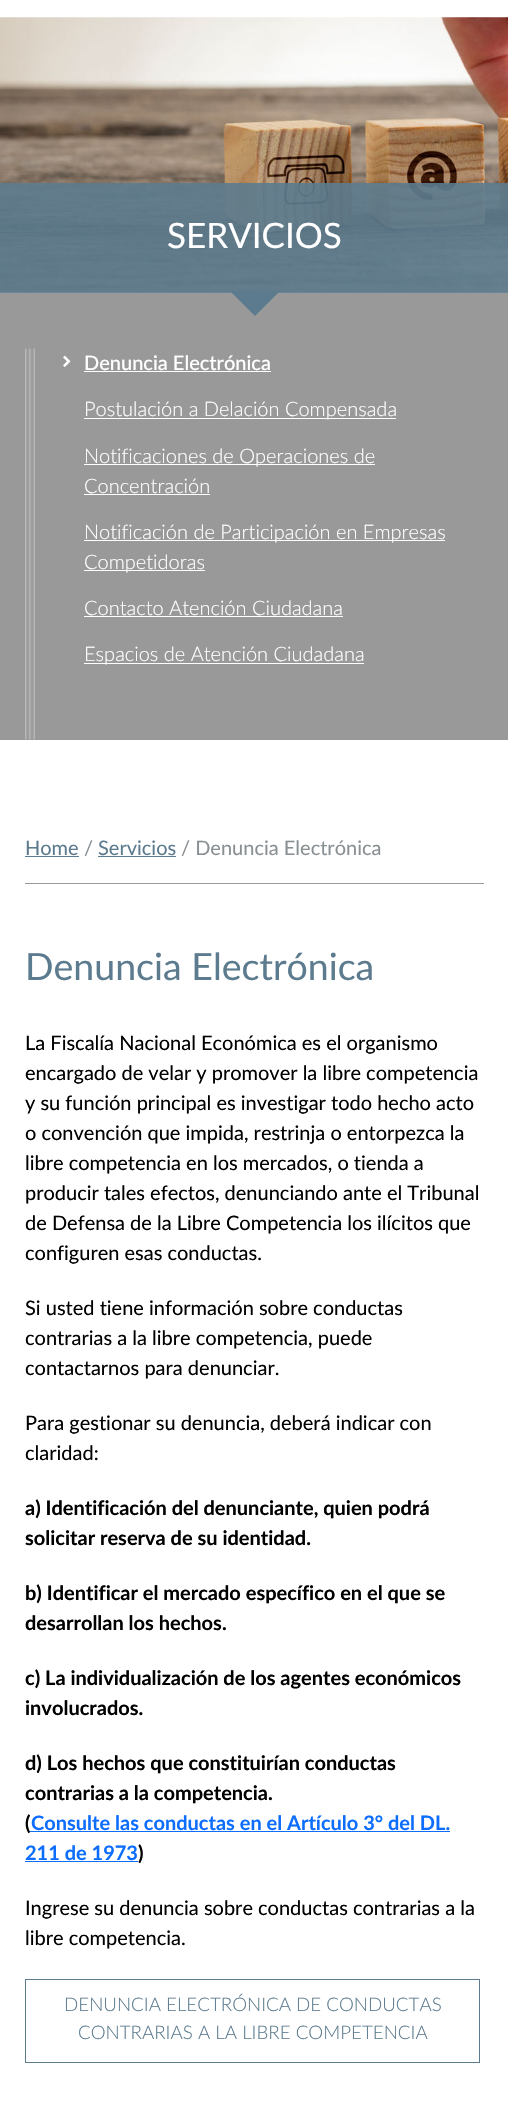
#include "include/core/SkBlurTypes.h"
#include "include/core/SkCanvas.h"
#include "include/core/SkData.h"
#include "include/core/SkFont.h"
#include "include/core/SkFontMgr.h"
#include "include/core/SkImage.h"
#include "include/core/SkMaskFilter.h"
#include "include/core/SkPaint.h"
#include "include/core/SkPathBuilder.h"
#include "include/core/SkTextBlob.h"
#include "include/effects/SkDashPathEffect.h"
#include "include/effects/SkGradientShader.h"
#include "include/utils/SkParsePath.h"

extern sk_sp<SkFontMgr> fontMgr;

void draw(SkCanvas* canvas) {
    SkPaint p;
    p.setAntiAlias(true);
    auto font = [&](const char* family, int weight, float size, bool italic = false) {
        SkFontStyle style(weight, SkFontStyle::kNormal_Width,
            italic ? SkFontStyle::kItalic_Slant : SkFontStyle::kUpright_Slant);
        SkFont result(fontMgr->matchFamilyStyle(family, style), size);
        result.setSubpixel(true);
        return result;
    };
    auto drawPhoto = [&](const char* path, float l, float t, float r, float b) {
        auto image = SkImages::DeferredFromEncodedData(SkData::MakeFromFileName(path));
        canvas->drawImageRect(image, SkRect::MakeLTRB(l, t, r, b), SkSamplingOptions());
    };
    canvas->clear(0xFFFFFFFF);
    drawPhoto("media/1.png", 0, 17, 508, 293);
    p.setColor(0xE65C7B8E);
    canvas->drawRect(SkRect::MakeLTRB(0, 183, 508, 293), p);
    auto font1 = font("Lato", 400, 35);
    p.setColor(0xFFFFFFFF);
    canvas->drawString("SERVICIOS", 167, 248, font1, p);
    p.setColor(0xFF999999);
    canvas->drawRect(SkRect::MakeLTRB(0, 293, 508, 740), p);
    p.setColor(0xFF5C7B8E);
    canvas->drawPath(SkPathBuilder().moveTo(230, 291).lineTo(280, 291).lineTo(255, 316).close().detach(), p);
    drawPhoto("media/2.png", 25, 348, 35, 740);
    drawPhoto("media/3.png", 63, 355, 71, 367);
    auto font2 = font("Lato", 500, 20);
    p.setColor(0xFFFFFFFF);
    canvas->drawString("Denuncia Electrónica", 84, 370, font2, p);
    canvas->drawRect(SkRect::MakeLTRB(84, 371, 271, 372), p);
    canvas->drawRect(SkRect::MakeLTRB(84, 418, 396, 419), p);
    auto font3 = font("Lato", 300, 20);
    canvas->drawString("Postulación a Delación Compensada", 84, 416, font3, p);
    canvas->drawRect(SkRect::MakeLTRB(84, 464, 375, 465), p);
    canvas->drawString("Notificaciones de Operaciones de", 84, 463, font3, p);
    canvas->drawString("Concentración", 84, 493, font3, p);
    canvas->drawRect(SkRect::MakeLTRB(84, 494, 210, 495), p);
    canvas->drawRect(SkRect::MakeLTRB(84, 540, 445, 541), p);
    canvas->drawString("Notificación de Participación en Empresas", 84, 539, font3, p);
    canvas->drawRect(SkRect::MakeLTRB(84, 570, 205, 571), p);
    canvas->drawString("Competidoras", 84, 569, font3, p);
    canvas->drawString("Contacto Atención Ciudadana", 84, 615, font3, p);
    canvas->drawRect(SkRect::MakeLTRB(84, 616, 343, 617), p);
    canvas->drawRect(SkRect::MakeLTRB(84, 663, 364, 664), p);
    canvas->drawString("Espacios de Atención Ciudadana", 84, 661, font3, p);
    p.setColor(0xFF999999);
    canvas->drawRect(SkRect::MakeLTRB(25, 883, 484, 884), p);
    auto font4 = font("Lato", 400, 20);
    p.setColor(0xFF5C7B8E);
    canvas->drawString("Home", 25, 855, font4, p);
    canvas->drawRect(SkRect::MakeLTRB(25, 856, 79, 857), p);
    p.setColor(0xFF899094);
    canvas->drawString("/", 84, 855, font4, p);
    p.setColor(0xFF5C7B8E);
    canvas->drawString("Servicios", 98, 855, font4, p);
    canvas->drawRect(SkRect::MakeLTRB(98, 856, 176, 857), p);
    p.setColor(0xFF899094);
    canvas->drawString("/ Denuncia Electrónica", 181, 855, font4, p);
    auto font5 = font("Lato", 400, 37.5f);
    p.setColor(0xFF5C7B8E);
    canvas->drawString("Denuncia Electrónica", 25, 980, font5, p);
    p.setColor(0xFF000000);
    {
        const struct { const char* s; float x, y; } items[] = {
            {"La Fiscalía Nacional Económica es el organismo", 25, 1050},
            {"encargado de velar y promover la libre competencia", 25, 1080},
            {"y su función principal es investigar todo hecho acto", 25, 1110},
            {"o convención que impida, restrinja o entorpezca la", 25, 1140},
            {"libre competencia en los mercados, o tienda a", 25, 1170},
            {"producir tales efectos, denunciando ante el Tribunal", 25, 1200},
            {"de Defensa de la Libre Competencia los ilícitos que", 25, 1230},
            {"configuren esas conductas.", 25, 1260},
            {"Si usted tiene información sobre conductas", 25, 1315},
            {"contrarias a la libre competencia, puede", 25, 1345},
            {"contactarnos para denunciar.", 25, 1375},
            {"Para gestionar su denuncia, deberá indicar con", 25, 1430},
            {"claridad:", 25, 1460},
        };
        for (auto [s, x, y] : items) {
            canvas->drawString(s, x, y, font4, p);
        }
    }
    auto font6 = font("Lato", 700, 20);
    {
        const struct { const char* s; float x, y; } items[] = {
            {"a) Identificación del denunciante, quien podrá", 25, 1515},
            {"solicitar reserva de su identidad.", 25, 1545},
            {"b) Identificar el mercado específico en el que se", 25, 1600},
            {"desarrollan los hechos.", 25, 1630},
            {"c) La individualización de los agentes económicos", 25, 1685},
            {"involucrados.", 25, 1715},
            {"d) Los hechos que constituirían conductas", 25, 1770},
            {"contrarias a la competencia.", 25, 1800},
            {"(", 25, 1830},
        };
        for (auto [s, x, y] : items) {
            canvas->drawString(s, x, y, font6, p);
        }
    }
    p.setColor(0xFF0D6EFD);
    canvas->drawRect(SkRect::MakeLTRB(30, 1831, 450, 1832), p);
    canvas->drawString("Consulte las conductas en el Artículo 3° del DL.", 31, 1830, font6, p);
    canvas->drawString("211 de 1973", 25, 1860, font6, p);
    p.setColor(0xFF000000);
    canvas->drawString(")", 138, 1860, font6, p);
    p.setColor(0xFF0D6EFD);
    canvas->drawRect(SkRect::MakeLTRB(25, 1861, 138, 1862), p);
    p.setColor(0xFF000000);
    canvas->drawString("Ingrese su denuncia sobre conductas contrarias a la", 25, 1915, font4, p);
    canvas->drawString("libre competencia.", 25, 1945, font4, p);
    p.setStyle(SkPaint::kStroke_Style);
    p.setStrokeWidth(1);
    p.setColor(0xFF5C7B8E);
    canvas->drawRect(SkRect::MakeLTRB(25.5f, 1979.5f, 479.5f, 2062.5f), p);
    auto font7 = font("Lato", 300, 18.75f);
    p.setStyle(SkPaint::kFill_Style);
    canvas->drawString("DENUNCIA ELECTRÓNICA DE CONDUCTAS", 64, 2011, font7, p);
    canvas->drawString("CONTRARIAS A LA LIBRE COMPETENCIA", 78, 2039, font7, p);
}
